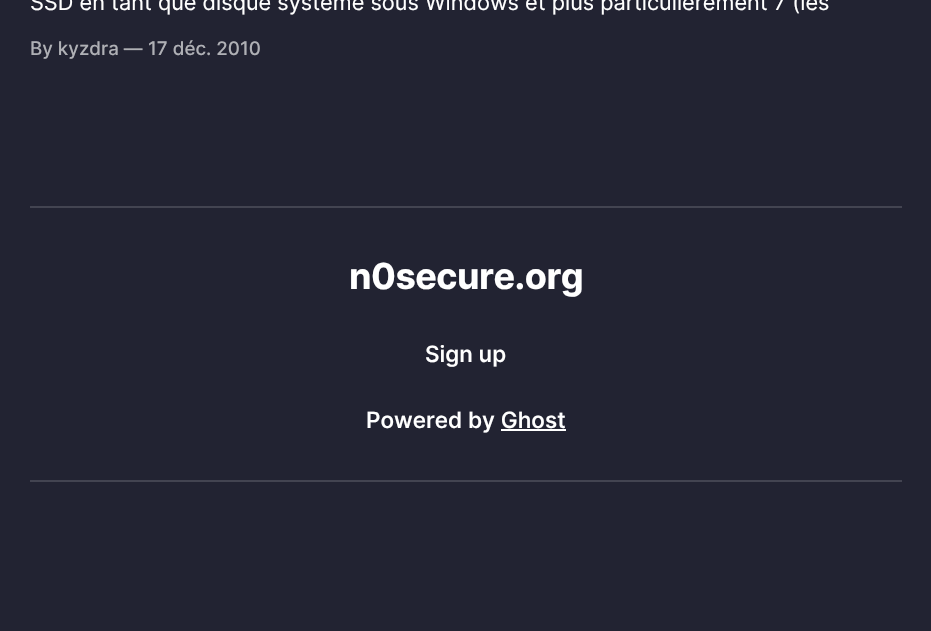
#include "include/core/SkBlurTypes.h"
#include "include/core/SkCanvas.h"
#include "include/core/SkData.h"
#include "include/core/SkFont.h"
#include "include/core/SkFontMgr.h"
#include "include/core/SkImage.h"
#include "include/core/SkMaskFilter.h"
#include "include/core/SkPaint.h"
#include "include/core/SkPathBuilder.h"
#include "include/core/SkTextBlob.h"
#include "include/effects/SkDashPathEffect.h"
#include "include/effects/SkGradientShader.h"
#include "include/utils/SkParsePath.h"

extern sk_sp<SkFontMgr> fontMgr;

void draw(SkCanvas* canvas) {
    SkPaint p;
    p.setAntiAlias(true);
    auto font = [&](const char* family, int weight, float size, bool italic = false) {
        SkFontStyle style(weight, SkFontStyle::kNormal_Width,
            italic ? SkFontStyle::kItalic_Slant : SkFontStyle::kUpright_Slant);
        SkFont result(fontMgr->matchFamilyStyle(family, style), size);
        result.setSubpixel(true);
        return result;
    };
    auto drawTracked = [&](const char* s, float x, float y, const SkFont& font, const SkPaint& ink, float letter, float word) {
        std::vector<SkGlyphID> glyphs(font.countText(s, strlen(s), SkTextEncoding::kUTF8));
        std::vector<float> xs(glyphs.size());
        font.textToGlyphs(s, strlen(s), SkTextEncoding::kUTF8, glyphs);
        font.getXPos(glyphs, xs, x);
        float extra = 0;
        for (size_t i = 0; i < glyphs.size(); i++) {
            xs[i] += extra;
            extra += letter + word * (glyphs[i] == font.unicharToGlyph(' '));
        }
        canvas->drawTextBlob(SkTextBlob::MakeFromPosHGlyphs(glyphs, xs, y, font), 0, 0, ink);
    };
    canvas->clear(0xFF222332);
    auto font1 = font("Inter", 400, 21.75f);
    p.setColor(0xFFFFFFFF);
    canvas->drawString("SSD en tant que disque système sous Windows et plus particulièrement 7 (les", 30, 10, font1, p);
    auto font2 = font("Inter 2", 500, 18.75f);
    p.setColor(0xFFAFB0B5);
    canvas->drawString("By kyzdra —", 30, 55, font2, p);
    canvas->drawString("17 déc. 2010", 148, 55, font2, p);
    p.setColor(0xFF434451);
    canvas->drawRect(SkRect::MakeLTRB(30, 206, 902, 208), p);
    canvas->drawRect(SkRect::MakeLTRB(30, 480, 902, 482), p);
    auto font3 = font("Inter", 700, 36);
    p.setColor(0xFFFFFFFF);
    drawTracked("n0secure.org", 349, 289, font3, p, -0.5f, 0);
    auto font4 = font("Inter", 500, 22.5f);
    canvas->drawString("Sign up", 425, 362, font4, p);
    canvas->drawString("Powered by Ghost", 366, 428, font4, p);
    canvas->drawRect(SkRect::MakeLTRB(501, 429, 566, 431), p);
}
